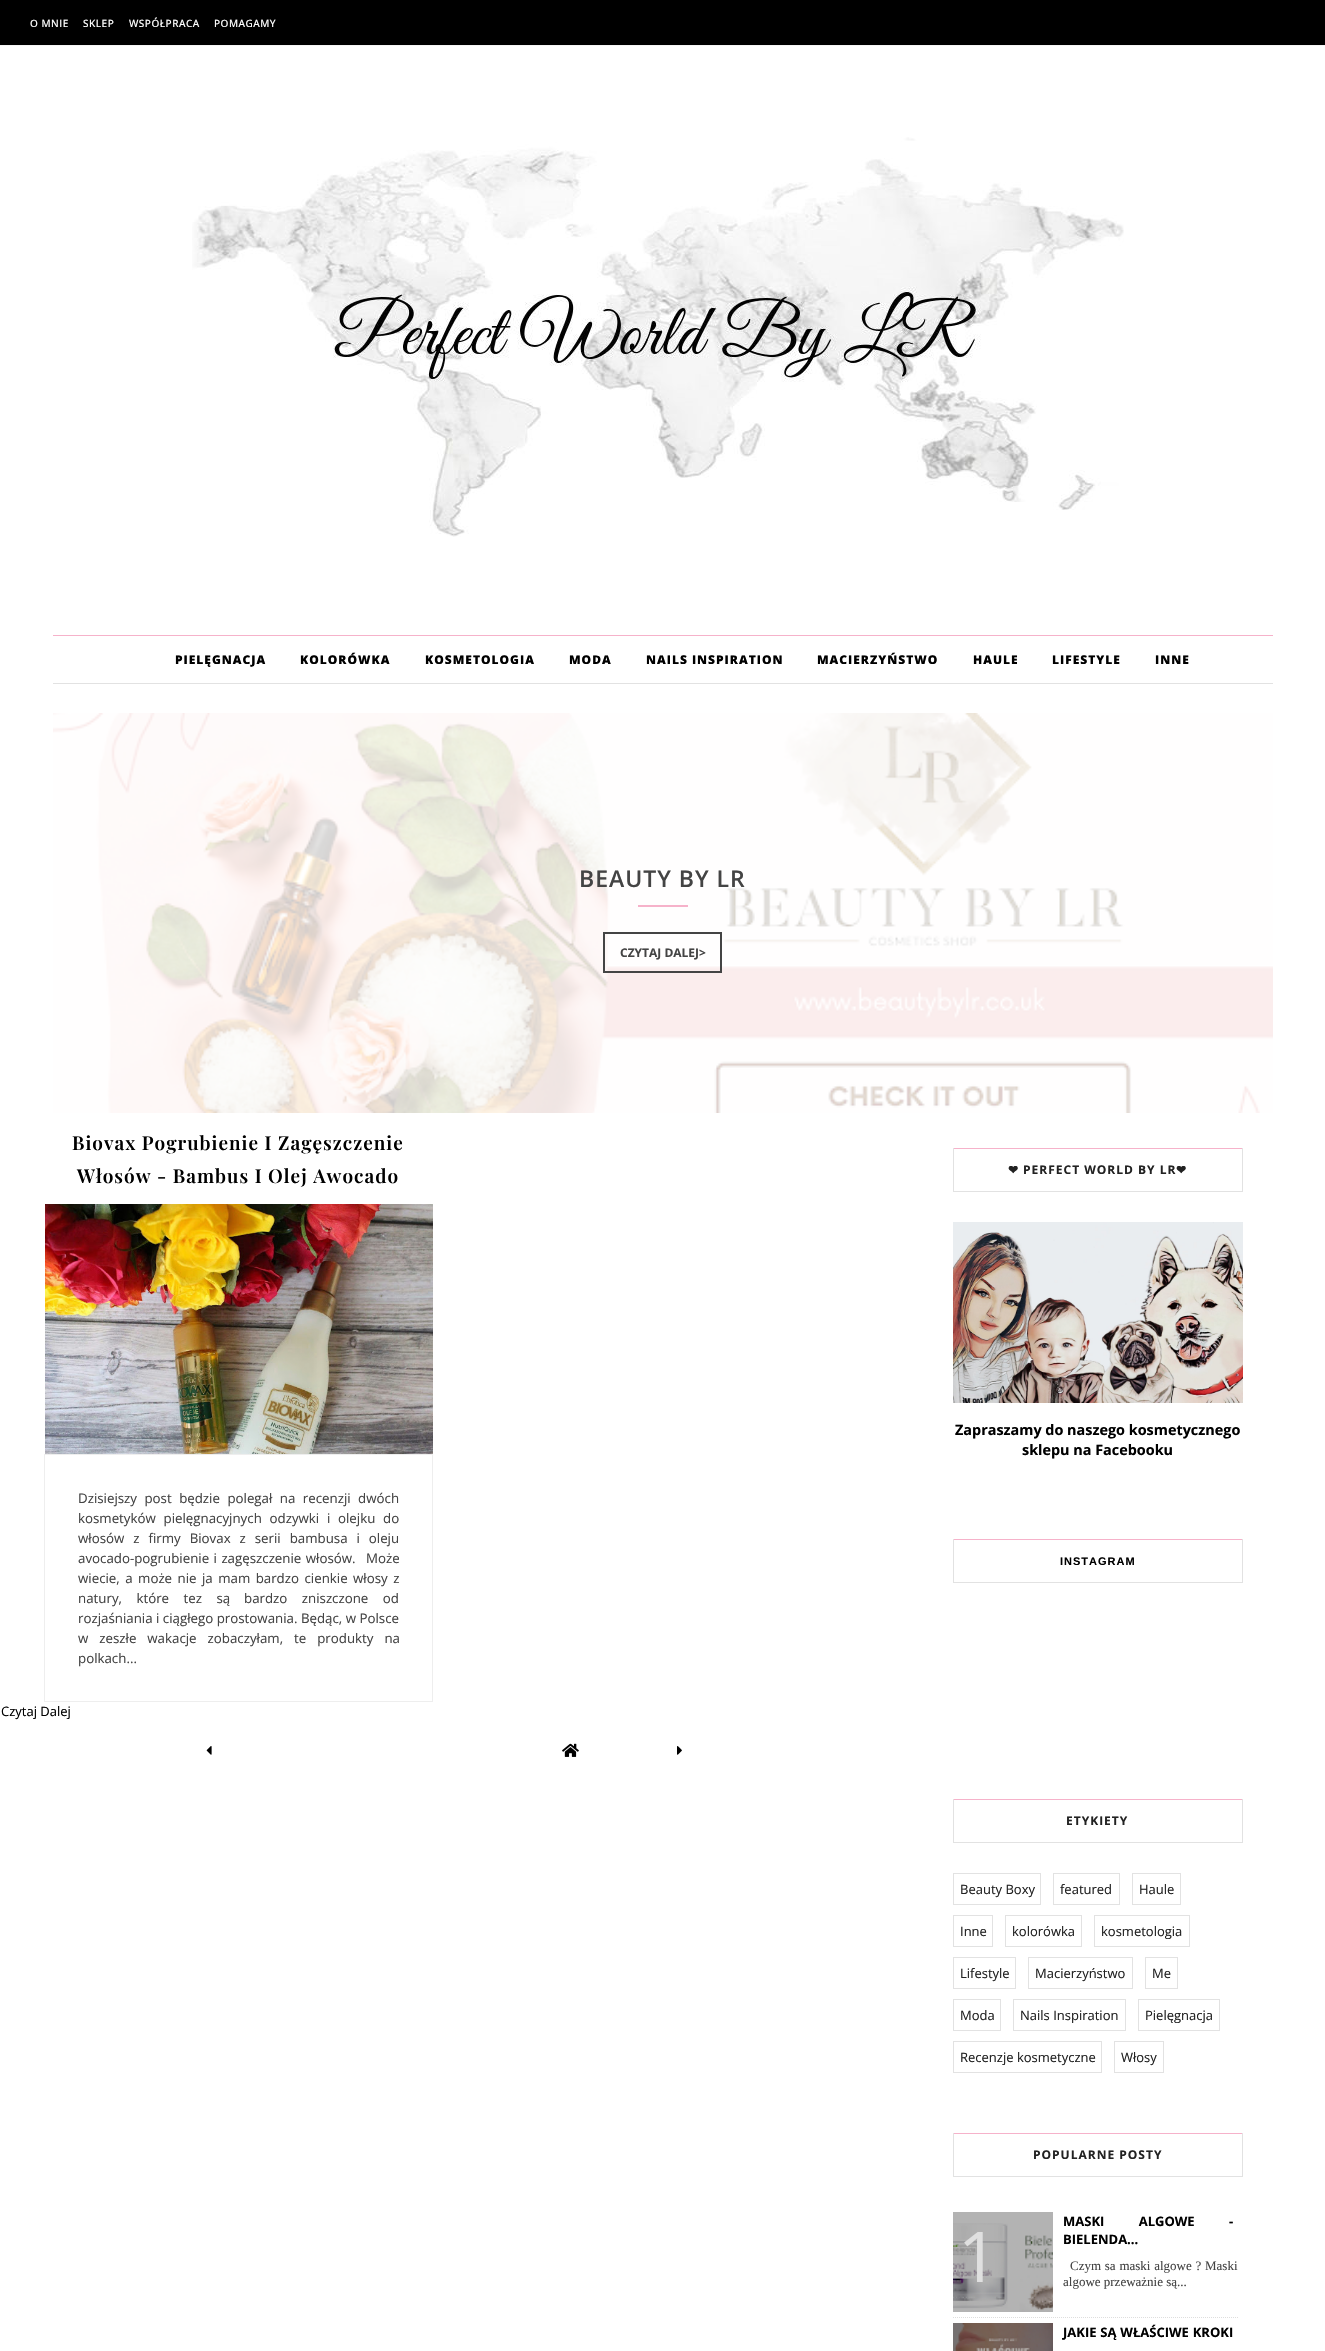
#include "include/core/SkBlurTypes.h"
#include "include/core/SkCanvas.h"
#include "include/core/SkData.h"
#include "include/core/SkFont.h"
#include "include/core/SkFontMgr.h"
#include "include/core/SkImage.h"
#include "include/core/SkMaskFilter.h"
#include "include/core/SkPaint.h"
#include "include/core/SkPathBuilder.h"
#include "include/core/SkTextBlob.h"
#include "include/effects/SkDashPathEffect.h"
#include "include/effects/SkGradientShader.h"
#include "include/utils/SkParsePath.h"

extern sk_sp<SkFontMgr> fontMgr;

void draw(SkCanvas* canvas) {
    SkPaint p;
    p.setAntiAlias(true);
    auto font = [&](const char* family, int weight, float size, bool italic = false) {
        SkFontStyle style(weight, SkFontStyle::kNormal_Width,
            italic ? SkFontStyle::kItalic_Slant : SkFontStyle::kUpright_Slant);
        SkFont result(fontMgr->matchFamilyStyle(family, style), size);
        result.setSubpixel(true);
        return result;
    };
    auto drawTracked = [&](const char* s, float x, float y, const SkFont& font, const SkPaint& ink, float letter, float word) {
        std::vector<SkGlyphID> glyphs(font.countText(s, strlen(s), SkTextEncoding::kUTF8));
        std::vector<float> xs(glyphs.size());
        font.textToGlyphs(s, strlen(s), SkTextEncoding::kUTF8, glyphs);
        font.getXPos(glyphs, xs, x);
        float extra = 0;
        for (size_t i = 0; i < glyphs.size(); i++) {
            xs[i] += extra;
            extra += letter + word * (glyphs[i] == font.unicharToGlyph(' '));
        }
        canvas->drawTextBlob(SkTextBlob::MakeFromPosHGlyphs(glyphs, xs, y, font), 0, 0, ink);
    };
    auto drawPhoto = [&](const char* path, float l, float t, float r, float b) {
        auto image = SkImages::DeferredFromEncodedData(SkData::MakeFromFileName(path));
        canvas->drawImageRect(image, SkRect::MakeLTRB(l, t, r, b), SkSamplingOptions());
    };
    canvas->clear(0xFFFFFFFF);
    {
        const struct { float l, t, r, b; SkColor color; } items[] = {
            {953, 2212, 1053, 2223, 0xFFB3B3B3},
            {0, 0, 1325, 45, 0xFF000000},
            {0, 45, 1325, 46, 0xFFF5F5F5},
        };
        for (auto [l, t, r, b, color] : items) {
            p.setColor(color);
            canvas->drawRect(SkRect::MakeLTRB(l, t, r, b), p);
        }
    }
    auto font1 = font("Open Sans", 500, 10);
    p.setColor(0xFFFFFFFF);
    {
        const struct { const char* s; float x, y; } items[] = {
            {"O MNIE", 30, 27},
            {"SKLEP", 83, 27},
            {"WSPÓŁPRACA", 129, 27},
            {"POMAGAMY", 214, 27},
        };
        for (auto [s, x, y] : items) {
            drawTracked(s, x, y, font1, p, 0.5f, 0);
        }
    }
    drawPhoto("media/1.png", 192, 137, 1124, 537);
    p.setColor(0xFFF6B2CA);
    canvas->drawRect(SkRect::MakeLTRB(53, 635, 1273, 636), p);
    p.setColor(0xFFE2E2E2);
    canvas->drawRect(SkRect::MakeLTRB(53, 683, 1273, 684), p);
    auto font2 = font("Open Sans", 800, 12);
    p.setColor(0xFF000000);
    {
        const struct { const char* s; float x, y; } items[] = {
            {"PIELĘGNACJA", 175, 664},
            {"KOLORÓWKA", 300, 664},
            {"KOSMETOLOGIA", 425, 664},
            {"MODA", 569, 664},
            {"NAILS INSPIRATION", 646, 664},
            {"MACIERZYŃSTWO", 817, 664},
            {"HAULE", 973, 664},
            {"LIFESTYLE", 1052, 664},
            {"INNE", 1155, 664},
        };
        for (auto [s, x, y] : items) {
            drawTracked(s, x, y, font2, p, 1, 0);
        }
    }
    drawPhoto("media/2.png", 53, 713, 1273, 1113);
    auto font3 = font("Open Sans", 600, 23);
    p.setColor(0xFF444444);
    drawTracked("BEAUTY BY LR", 579, 887, font3, p, 1, 0);
    p.setColor(0xFFF6B2CA);
    canvas->drawRect(SkRect::MakeLTRB(638, 905, 688, 907), p);
    p.setStyle(SkPaint::kStroke_Style);
    p.setStrokeWidth(2);
    p.setColor(0xFF444444);
    canvas->drawRect(SkRect::MakeLTRB(604, 933, 721, 972), p);
    auto font4 = font("Open Sans", 700, 12);
    p.setStyle(SkPaint::kFill_Style);
    canvas->drawString("CZYTAJ DALEJ>", 620, 957, font4, p);
    auto font5 = font("Playfair Display", 600, 19);
    p.setColor(0xFF000000);
    drawTracked("Biovax Pogrubienie I Zagęszczenie", 72, 1150, font5, p, 1, 0);
    drawTracked("Włosów - Bambus I Olej Awocado", 77, 1183, font5, p, 1, 0);
    drawPhoto("media/3.png", 45, 1204, 433, 1454);
    p.setStyle(SkPaint::kStroke_Style);
    p.setStrokeWidth(1);
    p.setColor(0xFFEEEEEE);
    canvas->drawRect(SkRect::MakeLTRB(44.5f, 1454.5f, 432.5f, 1701.5f), p);
    auto font6 = font("Open Sans", 400, 13.3f);
    p.setStyle(SkPaint::kFill_Style);
    p.setColor(0xFF444444);
    drawTracked("Dzisiejszy post będzie polegał na recenzji dwóch", 78, 1503, font6, p, 0, 4);
    drawTracked("kosmetyków pielęgnacyjnych odzywki i olejku do", 78, 1523, font6, p, 0, 4.25f);
    drawTracked("włosów z firmy Biovax z serii bambusa i oleju", 78, 1543, font6, p, 0, 5.5f);
    drawTracked("avocado-pogrubienie i zagęszczenie włosów.", 78, 1563, font6, p, 0, 1);
    canvas->drawString("Może", 366, 1563, font6, p);
    drawTracked("wiecie, a może nie ja mam bardzo cienkie włosy z", 78, 1583, font6, p, 0, 2);
    drawTracked("natury, które tez są", 78, 1603, font6, p, 0, 11);
    drawTracked("bardzo zniszczone od", 244, 1603, font6, p, 0, 11);
    canvas->drawString("rozjaśniania i ciągłego prostowania. Będąc, w Polsce", 78, 1623, font6, p);
    drawTracked("w zeszłe wakacje zobaczyłam, te produkty na", 78, 1643, font6, p, 0, 7.5f);
    canvas->drawString("polkach...", 78, 1663, font6, p);
    auto font7 = font("Open Sans", 400, 13);
    p.setColor(0xFF000000);
    canvas->drawString("Czytaj Dalej", 1, 1716, font7, p);
    drawPhoto("media/4.png", 206, 1746, 212, 1755);
    drawPhoto("media/5.png", 562, 1743, 579, 1757);
    drawPhoto("media/6.png", 677, 1746, 682, 1755);
    {
        const struct { float l, t, r, b; SkColor color; } items[] = {
            {953, 1148, 1243, 1149, 0xFFF6B2CA},
            {1242, 1148, 1243, 1192, 0xFFE2E2E2},
            {953, 1191, 1243, 1192, 0xFFE2E2E2},
            {953, 1148, 954, 1192, 0xFFE2E2E2},
        };
        for (auto [l, t, r, b, color] : items) {
            p.setColor(color);
            canvas->drawRect(SkRect::MakeLTRB(l, t, r, b), p);
        }
    }
    auto font8 = font("DejaVu Sans", 700, 12);
    p.setColor(0xFF222222);
    drawTracked("❤", 1008, 1174, font8, p, 1, 0);
    drawTracked("PERFECT WORLD BY LR", 1023, 1174, font4, p, 1, 0);
    drawTracked("❤", 1176, 1174, font8, p, 1, 0);
    drawPhoto("media/7.png", 953, 1222, 1243, 1403);
    auto font9 = font("Open Sans", 700, 14.4f);
    p.setColor(0xFF000000);
    canvas->drawString("Zapraszamy do naszego kosmetycznego", 955, 1435, font9, p);
    canvas->drawString("sklepu na Facebooku", 1022, 1455, font9, p);
    {
        const struct { float l, t, r, b; SkColor color; } items[] = {
            {953, 1539, 1243, 1540, 0xFFF6B2CA},
            {1242, 1539, 1243, 1583, 0xFFE2E2E2},
            {953, 1582, 1243, 1583, 0xFFE2E2E2},
            {953, 1539, 954, 1583, 0xFFE2E2E2},
        };
        for (auto [l, t, r, b, color] : items) {
            p.setColor(color);
            canvas->drawRect(SkRect::MakeLTRB(l, t, r, b), p);
        }
    }
    auto font10 = font("Liberation Sans", 700, 11);
    p.setColor(0xFF000000);
    drawTracked("INSTAGRAM", 1060, 1565, font10, p, 1, 0);
    {
        const struct { float l, t, r, b; SkColor color; } items[] = {
            {953, 1799, 1243, 1800, 0xFFF6B2CA},
            {1242, 1799, 1243, 1843, 0xFFE2E2E2},
            {953, 1842, 1243, 1843, 0xFFE2E2E2},
            {953, 1799, 954, 1843, 0xFFE2E2E2},
        };
        for (auto [l, t, r, b, color] : items) {
            p.setColor(color);
            canvas->drawRect(SkRect::MakeLTRB(l, t, r, b), p);
        }
    }
    p.setColor(0xFF222222);
    drawTracked("ETYKIETY", 1066, 1825, font4, p, 1, 0);
    p.setStyle(SkPaint::kStroke_Style);
    p.setColor(0xFFE2E2E2);
    canvas->drawRect(SkRect::MakeLTRB(953.5f, 1873.5f, 1040.5f, 1904.5f), p);
    p.setStyle(SkPaint::kFill_Style);
    p.setColor(0xFF222222);
    canvas->drawString("Beauty Boxy", 960, 1894, font7, p);
    p.setStyle(SkPaint::kStroke_Style);
    p.setColor(0xFFE2E2E2);
    canvas->drawRect(SkRect::MakeLTRB(1053.5f, 1873.5f, 1119.5f, 1904.5f), p);
    p.setStyle(SkPaint::kFill_Style);
    p.setColor(0xFF222222);
    canvas->drawString("featured", 1060, 1894, font7, p);
    p.setStyle(SkPaint::kStroke_Style);
    p.setColor(0xFFE2E2E2);
    canvas->drawRect(SkRect::MakeLTRB(1132.5f, 1873.5f, 1180.5f, 1904.5f), p);
    p.setStyle(SkPaint::kFill_Style);
    p.setColor(0xFF222222);
    canvas->drawString("Haule", 1139, 1894, font7, p);
    p.setStyle(SkPaint::kStroke_Style);
    p.setColor(0xFFE2E2E2);
    canvas->drawRect(SkRect::MakeLTRB(953.5f, 1915.5f, 992.5f, 1946.5f), p);
    p.setStyle(SkPaint::kFill_Style);
    p.setColor(0xFF222222);
    canvas->drawString("Inne", 960, 1936, font7, p);
    p.setStyle(SkPaint::kStroke_Style);
    p.setColor(0xFFE2E2E2);
    canvas->drawRect(SkRect::MakeLTRB(1005.5f, 1915.5f, 1081.5f, 1946.5f), p);
    p.setStyle(SkPaint::kFill_Style);
    p.setColor(0xFF222222);
    canvas->drawString("kolorówka", 1012, 1936, font7, p);
    p.setStyle(SkPaint::kStroke_Style);
    p.setColor(0xFFE2E2E2);
    canvas->drawRect(SkRect::MakeLTRB(1094.5f, 1915.5f, 1189.5f, 1946.5f), p);
    p.setStyle(SkPaint::kFill_Style);
    p.setColor(0xFF222222);
    canvas->drawString("kosmetologia", 1101, 1936, font7, p);
    p.setStyle(SkPaint::kStroke_Style);
    p.setColor(0xFFE2E2E2);
    canvas->drawRect(SkRect::MakeLTRB(953.5f, 1957.5f, 1015.5f, 1988.5f), p);
    p.setStyle(SkPaint::kFill_Style);
    p.setColor(0xFF222222);
    canvas->drawString("Lifestyle", 960, 1978, font7, p);
    p.setStyle(SkPaint::kStroke_Style);
    p.setColor(0xFFE2E2E2);
    canvas->drawRect(SkRect::MakeLTRB(1028.5f, 1957.5f, 1132.5f, 1988.5f), p);
    p.setStyle(SkPaint::kFill_Style);
    p.setColor(0xFF222222);
    canvas->drawString("Macierzyństwo", 1035, 1978, font7, p);
    p.setStyle(SkPaint::kStroke_Style);
    p.setColor(0xFFE2E2E2);
    canvas->drawRect(SkRect::MakeLTRB(1145.5f, 1957.5f, 1177.5f, 1988.5f), p);
    p.setStyle(SkPaint::kFill_Style);
    p.setColor(0xFF222222);
    canvas->drawString("Me", 1152, 1978, font7, p);
    p.setStyle(SkPaint::kStroke_Style);
    p.setColor(0xFFE2E2E2);
    canvas->drawRect(SkRect::MakeLTRB(953.5f, 1999.5f, 1000.5f, 2030.5f), p);
    p.setStyle(SkPaint::kFill_Style);
    p.setColor(0xFF222222);
    canvas->drawString("Moda", 960, 2020, font7, p);
    p.setStyle(SkPaint::kStroke_Style);
    p.setColor(0xFFE2E2E2);
    canvas->drawRect(SkRect::MakeLTRB(1013.5f, 1999.5f, 1125.5f, 2030.5f), p);
    p.setStyle(SkPaint::kFill_Style);
    p.setColor(0xFF222222);
    canvas->drawString("Nails Inspiration", 1020, 2020, font7, p);
    p.setStyle(SkPaint::kStroke_Style);
    p.setColor(0xFFE2E2E2);
    canvas->drawRect(SkRect::MakeLTRB(1138.5f, 1999.5f, 1219.5f, 2030.5f), p);
    p.setStyle(SkPaint::kFill_Style);
    p.setColor(0xFF222222);
    canvas->drawString("Pielęgnacja", 1145, 2020, font7, p);
    p.setStyle(SkPaint::kStroke_Style);
    p.setColor(0xFFE2E2E2);
    canvas->drawRect(SkRect::MakeLTRB(953.5f, 2041.5f, 1101.5f, 2072.5f), p);
    p.setStyle(SkPaint::kFill_Style);
    p.setColor(0xFF222222);
    canvas->drawString("Recenzje kosmetyczne", 960, 2062, font7, p);
    p.setStyle(SkPaint::kStroke_Style);
    p.setColor(0xFFE2E2E2);
    canvas->drawRect(SkRect::MakeLTRB(1114.5f, 2041.5f, 1163.5f, 2072.5f), p);
    p.setStyle(SkPaint::kFill_Style);
    p.setColor(0xFF222222);
    canvas->drawString("Włosy", 1121, 2062, font7, p);
    {
        const struct { float l, t, r, b; SkColor color; } items[] = {
            {953, 2133, 1243, 2134, 0xFFF6B2CA},
            {1242, 2133, 1243, 2177, 0xFFE2E2E2},
            {953, 2176, 1243, 2177, 0xFFE2E2E2},
            {953, 2133, 954, 2177, 0xFFE2E2E2},
        };
        for (auto [l, t, r, b, color] : items) {
            p.setColor(color);
            canvas->drawRect(SkRect::MakeLTRB(l, t, r, b), p);
        }
    }
    p.setColor(0xFF222222);
    drawTracked("POPULARNE POSTY", 1033, 2159, font4, p, 1, 0);
    p.setStyle(SkPaint::kStroke_Style);
    p.setColor(0xFFDEDEDE);
    p.setPathEffect(SkDashPathEffect::Make({{1, 1}}, 0));
    canvas->drawPath(SkPathBuilder().moveTo(953, 2317.5f).lineTo(1238, 2317.5f).detach(), p);
    p.setPathEffect(nullptr);
    drawPhoto("media/8.png", 953, 2223, 1053, 2312);
    auto font11 = font("Open Sans", 400, 70);
    p.setStyle(SkPaint::kFill_Style);
    p.setColor(0xFFE0E0E0);
    canvas->drawString("1", 958, 2282, font11, p);
    auto font12 = font("Open Sans", 700, 13);
    p.setColor(0xFF000000);
    drawTracked("MASKI ALGOWE -", 1063, 2226, font12, p, 0, 31);
    canvas->drawString("BIELENDA...", 1063, 2244, font12, p);
    auto font13 = font("Liberation Serif", 400, 13);
    p.setColor(0xFF444444);
    drawTracked("Czym sa maski algowe ? Maski", 1070, 2270, font13, p, 0, 0.5f);
    canvas->drawString("algowe przeważnie są...", 1063, 2286, font13, p);
    drawPhoto("media/9.png", 953, 2323, 1053, 2351);
    p.setColor(0xFF000000);
    drawTracked("JAKIE SĄ WŁAŚCIWE KROKI", 1063, 2337, font12, p, 0, 0.5f);
}
